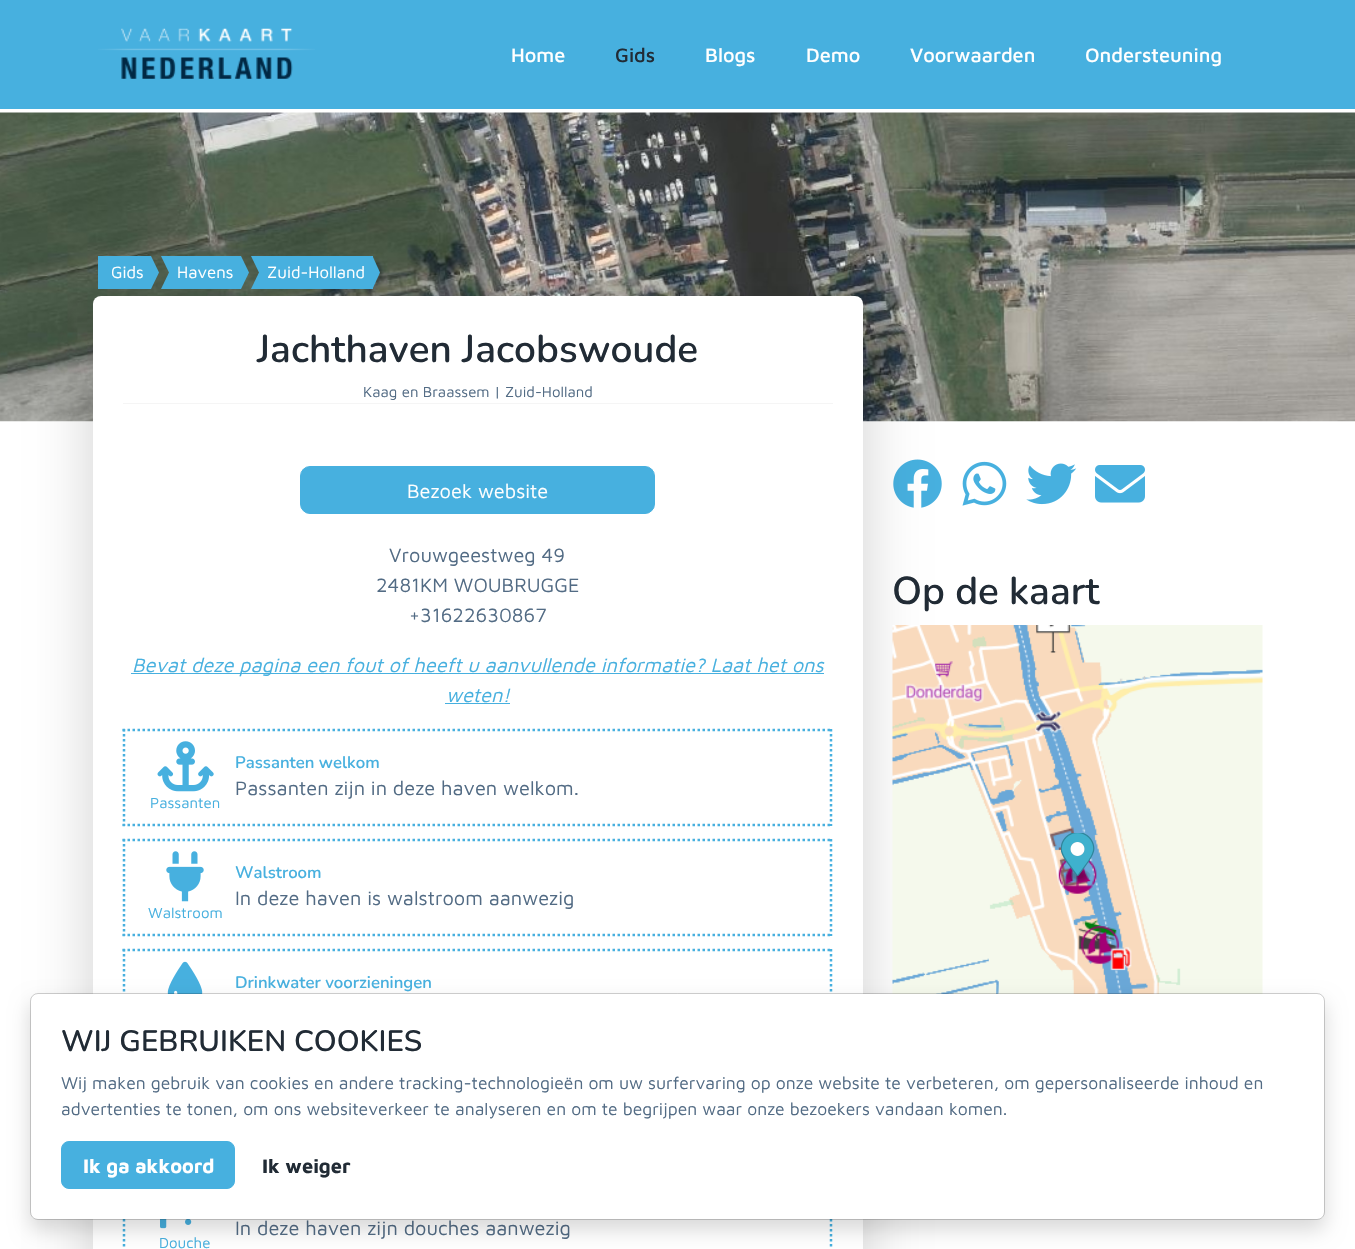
#include "include/core/SkBlurTypes.h"
#include "include/core/SkCanvas.h"
#include "include/core/SkData.h"
#include "include/core/SkFont.h"
#include "include/core/SkFontMgr.h"
#include "include/core/SkImage.h"
#include "include/core/SkMaskFilter.h"
#include "include/core/SkPaint.h"
#include "include/core/SkPathBuilder.h"
#include "include/core/SkTextBlob.h"
#include "include/effects/SkDashPathEffect.h"
#include "include/effects/SkGradientShader.h"
#include "include/utils/SkParsePath.h"

extern sk_sp<SkFontMgr> fontMgr;

void draw(SkCanvas* canvas) {
    SkPaint p;
    p.setAntiAlias(true);
    auto font = [&](const char* family, int weight, float size, bool italic = false) {
        SkFontStyle style(weight, SkFontStyle::kNormal_Width,
            italic ? SkFontStyle::kItalic_Slant : SkFontStyle::kUpright_Slant);
        SkFont result(fontMgr->matchFamilyStyle(family, style), size);
        result.setSubpixel(true);
        return result;
    };
    auto drawPhoto = [&](const char* path, float l, float t, float r, float b) {
        auto image = SkImages::DeferredFromEncodedData(SkData::MakeFromFileName(path));
        canvas->drawImageRect(image, SkRect::MakeLTRB(l, t, r, b), SkSamplingOptions());
    };
    canvas->clear(0xFFFFFFFF);
    p.setColor(0xFF47B0DF);
    canvas->drawRect(SkRect::MakeLTRB(0, 0, 1355, 109), p);
    drawPhoto("media/1.png", 98, 28, 315, 79);
    auto font1 = font("Maven Pro", 500, 20);
    p.setColor(0xFFFFFFFF);
    canvas->drawString("Home", 511, 62, font1, p);
    p.setColor(0xFF212B35);
    canvas->drawString("Gids", 615, 62, font1, p);
    p.setColor(0xFFFFFFFF);
    {
        const struct { const char* s; float x, y; } items[] = {
            {"Blogs", 705, 62},
            {"Demo", 806, 62},
            {"Voorwaarden", 910, 62},
            {"Ondersteuning", 1085, 62},
        };
        for (auto [s, x, y] : items) {
            canvas->drawString(s, x, y, font1, p);
        }
    }
    drawPhoto("media/2.png", 0, 112, 1355, 422);
    drawPhoto("media/7.png", 893, 459, 942, 508);
    p.setColor(0x2E000000);
    p.setMaskFilter(SkMaskFilter::MakeBlur(kNormal_SkBlurStyle, 30));
    canvas->drawRoundRect(SkRect::MakeLTRB(93, 316, 863, 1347), 8, 8, p);
    p.setMaskFilter(nullptr);
    p.setColor(0xFFFFFFFF);
    canvas->drawRoundRect(SkRect::MakeLTRB(93, 296, 863, 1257), 8, 8, p);
    p.setColor(0xFF47B0DF);
    canvas->drawRect(SkRect::MakeLTRB(98, 256, 151, 289), p);
    auto font2 = font("Maven Pro", 400, 16.75f);
    p.setColor(0xFFFFFFFF);
    canvas->drawString("Gids", 111, 278, font2, p);
    p.setColor(0xFF47B0DF);
    canvas->drawPath(SkPathBuilder().moveTo(151, 289).lineTo(151, 256).lineTo(159, 272.5f).close().detach(), p);
    canvas->drawRect(SkRect::MakeLTRB(173, 256, 241, 289), p);
    canvas->drawPath(SkPathBuilder().moveTo(161, 256).lineTo(172.5f, 256).lineTo(169, 272.5f).close().detach(), p);
    canvas->drawRect(SkRect::MakeLTRB(169, 256, 173, 289), p);
    canvas->drawPath(SkPathBuilder().moveTo(172.5f, 289).lineTo(161, 289).lineTo(169, 272.5f).close().detach(), p);
    p.setColor(0xFFFFFFFF);
    canvas->drawString("Havens", 177, 278, font2, p);
    p.setColor(0xFF47B0DF);
    canvas->drawPath(SkPathBuilder().moveTo(241, 289).lineTo(241, 256).lineTo(249, 272.5f).close().detach(), p);
    canvas->drawRect(SkRect::MakeLTRB(263, 256, 373, 289), p);
    canvas->drawPath(SkPathBuilder().moveTo(251, 256).lineTo(262.5f, 256).lineTo(259, 272.5f).close().detach(), p);
    canvas->drawRect(SkRect::MakeLTRB(259, 256, 263, 289), p);
    canvas->drawPath(SkPathBuilder().moveTo(262.5f, 289).lineTo(251, 289).lineTo(259, 272.5f).close().detach(), p);
    p.setColor(0xFFFFFFFF);
    canvas->drawString("Zuid-Holland", 267, 278, font2, p);
    p.setColor(0xFF47B0DF);
    canvas->drawPath(SkPathBuilder().moveTo(372.5f, 289).lineTo(372.5f, 256).lineTo(380, 272.5f).close().detach(), p);
    auto font3 = font("Nunito", 600, 38.75f);
    p.setColor(0xFF212B35);
    canvas->drawString("Jachthaven Jacobswoude", 257, 362, font3, p);
    p.setColor(0xFFF5F5F5);
    canvas->drawRect(SkRect::MakeLTRB(123, 403, 833, 404), p);
    auto font4 = font("Maven Pro", 400, 15);
    p.setColor(0xFF526B84);
    canvas->drawString("Kaag en Braassem | Zuid-Holland", 363, 397, font4, p);
    p.setColor(0xFF47B0DF);
    canvas->drawRoundRect(SkRect::MakeLTRB(300.5f, 466.5f, 654.5f, 513.5f), 9.5f, 9.5f, p);
    p.setStyle(SkPaint::kStroke_Style);
    p.setStrokeWidth(1);
    canvas->drawRoundRect(SkRect::MakeLTRB(300.5f, 466.5f, 654.5f, 513.5f), 9.5f, 9.5f, p);
    auto font5 = font("Maven Pro", 400, 20);
    p.setStyle(SkPaint::kFill_Style);
    p.setColor(0xFFFFFFFF);
    canvas->drawString("Bezoek website", 407, 498, font5, p);
    p.setColor(0xFF526B84);
    {
        const struct { const char* s; float x, y; } items[] = {
            {"Vrouwgeestweg 49", 389, 562},
            {"2481KM WOUBRUGGE", 376, 592},
            {"+31622630867", 409, 622},
        };
        for (auto [s, x, y] : items) {
            canvas->drawString(s, x, y, font5, p);
        }
    }
    p.setColor(0xFF47B0DF);
    canvas->drawRect(SkRect::MakeLTRB(131, 673, 824, 674), p);
    auto font6 = font("Maven Pro", 400, 20, true);
    canvas->drawString("Bevat deze pagina een fout of heeft u aanvullende informatie? Laat het ons", 132, 672, font6, p);
    canvas->drawString("weten!", 446, 702, font6, p);
    canvas->drawRect(SkRect::MakeLTRB(445, 703, 510, 704), p);
    p.setStyle(SkPaint::kStroke_Style);
    p.setStrokeWidth(2.5f);
    p.setPathEffect(SkDashPathEffect::Make({{2.5f, 2.5f}}, 0));
    canvas->drawPath(SkPathBuilder().moveTo(122.5f, 730).lineTo(832.5f, 730).detach(), p);
    p.setPathEffect(nullptr);
    p.setPathEffect(SkDashPathEffect::Make({{2.5f, 2.5f}}, 0));
    canvas->drawPath(SkPathBuilder().moveTo(831, 729).lineTo(831, 826).detach(), p);
    p.setPathEffect(nullptr);
    p.setPathEffect(SkDashPathEffect::Make({{2.5f, 2.5f}}, 0));
    canvas->drawPath(SkPathBuilder().moveTo(122.5f, 825).lineTo(832.5f, 825).detach(), p);
    p.setPathEffect(nullptr);
    p.setPathEffect(SkDashPathEffect::Make({{2.5f, 2.5f}}, 0));
    canvas->drawPath(SkPathBuilder().moveTo(124, 729).lineTo(124, 826).detach(), p);
    p.setPathEffect(nullptr);
    auto font7 = font("Nunito", 600, 16.75f);
    p.setStyle(SkPaint::kFill_Style);
    canvas->drawString("Passanten welkom", 235, 768, font7, p);
    p.setColor(0xFF526B84);
    canvas->drawString("Passanten zijn in deze haven welkom.", 235, 795, font5, p);
    drawPhoto("media/3.png", 157, 741, 214, 792);
    p.setColor(0xFF47B0DF);
    canvas->drawString("Passanten", 150, 808, font4, p);
    p.setStyle(SkPaint::kStroke_Style);
    p.setPathEffect(SkDashPathEffect::Make({{2.5f, 2.5f}}, 0));
    canvas->drawPath(SkPathBuilder().moveTo(122.5f, 840).lineTo(832.5f, 840).detach(), p);
    p.setPathEffect(nullptr);
    p.setPathEffect(SkDashPathEffect::Make({{2.5f, 2.5f}}, 0));
    canvas->drawPath(SkPathBuilder().moveTo(831, 839).lineTo(831, 936).detach(), p);
    p.setPathEffect(nullptr);
    p.setPathEffect(SkDashPathEffect::Make({{2.5f, 2.5f}}, 0));
    canvas->drawPath(SkPathBuilder().moveTo(122.5f, 935).lineTo(832.5f, 935).detach(), p);
    p.setPathEffect(nullptr);
    p.setPathEffect(SkDashPathEffect::Make({{2.5f, 2.5f}}, 0));
    canvas->drawPath(SkPathBuilder().moveTo(124, 839).lineTo(124, 936).detach(), p);
    p.setPathEffect(nullptr);
    p.setStyle(SkPaint::kFill_Style);
    canvas->drawString("Walstroom", 235, 878, font7, p);
    p.setColor(0xFF526B84);
    canvas->drawString("In deze haven is walstroom aanwezig", 235, 905, font5, p);
    drawPhoto("media/4.png", 166, 851, 204, 902);
    p.setColor(0xFF47B0DF);
    canvas->drawString("Walstroom", 148, 918, font4, p);
    p.setStyle(SkPaint::kStroke_Style);
    p.setPathEffect(SkDashPathEffect::Make({{2.5f, 2.5f}}, 0));
    canvas->drawPath(SkPathBuilder().moveTo(122.5f, 950).lineTo(832.5f, 950).detach(), p);
    p.setPathEffect(nullptr);
    p.setPathEffect(SkDashPathEffect::Make({{2.5f, 2.5f}}, 0));
    canvas->drawPath(SkPathBuilder().moveTo(831, 949).lineTo(831, 1046).detach(), p);
    p.setPathEffect(nullptr);
    p.setPathEffect(SkDashPathEffect::Make({{2.5f, 2.5f}}, 0));
    canvas->drawPath(SkPathBuilder().moveTo(124, 949).lineTo(124, 1046).detach(), p);
    p.setPathEffect(nullptr);
    drawPhoto("media/5.png", 167, 961, 203, 994);
    p.setStyle(SkPaint::kFill_Style);
    canvas->drawString("Drinkwater voorzieningen", 235, 988, font7, p);
    p.setStyle(SkPaint::kStroke_Style);
    p.setPathEffect(SkDashPathEffect::Make({{2.5f, 2.5f}}, 0));
    canvas->drawPath(SkPathBuilder().moveTo(831, 1169).lineTo(831, 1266).detach(), p);
    p.setPathEffect(nullptr);
    p.setPathEffect(SkDashPathEffect::Make({{2.5f, 2.5f}}, 0));
    canvas->drawPath(SkPathBuilder().moveTo(124, 1169).lineTo(124, 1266).detach(), p);
    p.setPathEffect(nullptr);
    p.setStyle(SkPaint::kFill_Style);
    p.setColor(0xFF526B84);
    canvas->drawString("In deze haven zijn douches aanwezig", 235, 1235, font5, p);
    drawPhoto("media/6.png", 160, 1219, 192, 1229);
    p.setColor(0xFF47B0DF);
    canvas->drawString("Douche", 159, 1248, font4, p);
    drawPhoto("media/8.png", 962, 461, 1007, 506);
    drawPhoto("media/9.png", 1026, 463, 1077, 505);
    drawPhoto("media/10.png", 1095, 465, 1145, 503);
    p.setColor(0xFF212B35);
    canvas->drawString("Op de kaart", 892, 604, font3, p);
    drawPhoto("media/11.png", 892, 625, 1263, 994);
    drawPhoto("media/12.png", 1061, 833, 1095, 882);
    p.setColor(0x26000000);
    p.setMaskFilter(SkMaskFilter::MakeBlur(kNormal_SkBlurStyle, 10));
    canvas->drawRoundRect(SkRect::MakeLTRB(30, 1003, 1325, 1230), 8, 8, p);
    p.setMaskFilter(nullptr);
    p.setColor(0xFFFFFFFF);
    canvas->drawRoundRect(SkRect::MakeLTRB(31, 994, 1324, 1219), 6, 6, p);
    p.setStyle(SkPaint::kStroke_Style);
    p.setStrokeWidth(1);
    p.setColor(0x2E000000);
    canvas->drawRoundRect(SkRect::MakeLTRB(30.5f, 993.5f, 1324.5f, 1219.5f), 7.5f, 7.5f, p);
    auto font8 = font("Nunito", 600, 29.5f);
    p.setStyle(SkPaint::kFill_Style);
    p.setColor(0xFF212B35);
    canvas->drawString("WIJ GEBRUIKEN COOKIES", 61, 1051, font8, p);
    auto font9 = font("Maven Pro", 400, 17.5f);
    p.setColor(0xFF526B84);
    canvas->drawString("Wij maken gebruik van cookies en andere tracking-technologieën om uw surfervaring op onze website te verbeteren, om gepersonaliseerde inhoud en", 61, 1089, font9, p);
    canvas->drawString("advertenties te tonen, om ons websiteverkeer te analyseren en om te begrijpen waar onze bezoekers vandaan komen.", 61, 1115, font9, p);
    p.setColor(0xFF47B0DF);
    canvas->drawRoundRect(SkRect::MakeLTRB(61.5f, 1141.5f, 234.5f, 1188.5f), 7.5f, 7.5f, p);
    p.setStyle(SkPaint::kStroke_Style);
    canvas->drawRoundRect(SkRect::MakeLTRB(61.5f, 1141.5f, 234.5f, 1188.5f), 7.5f, 7.5f, p);
    auto font10 = font("Maven Pro", 700, 20);
    p.setStyle(SkPaint::kFill_Style);
    p.setColor(0xFFFFFFFF);
    canvas->drawString("Ik ga akkoord", 83, 1173, font10, p);
    p.setColor(0xFF212B35);
    canvas->drawString("Ik weiger", 262, 1173, font10, p);
}
